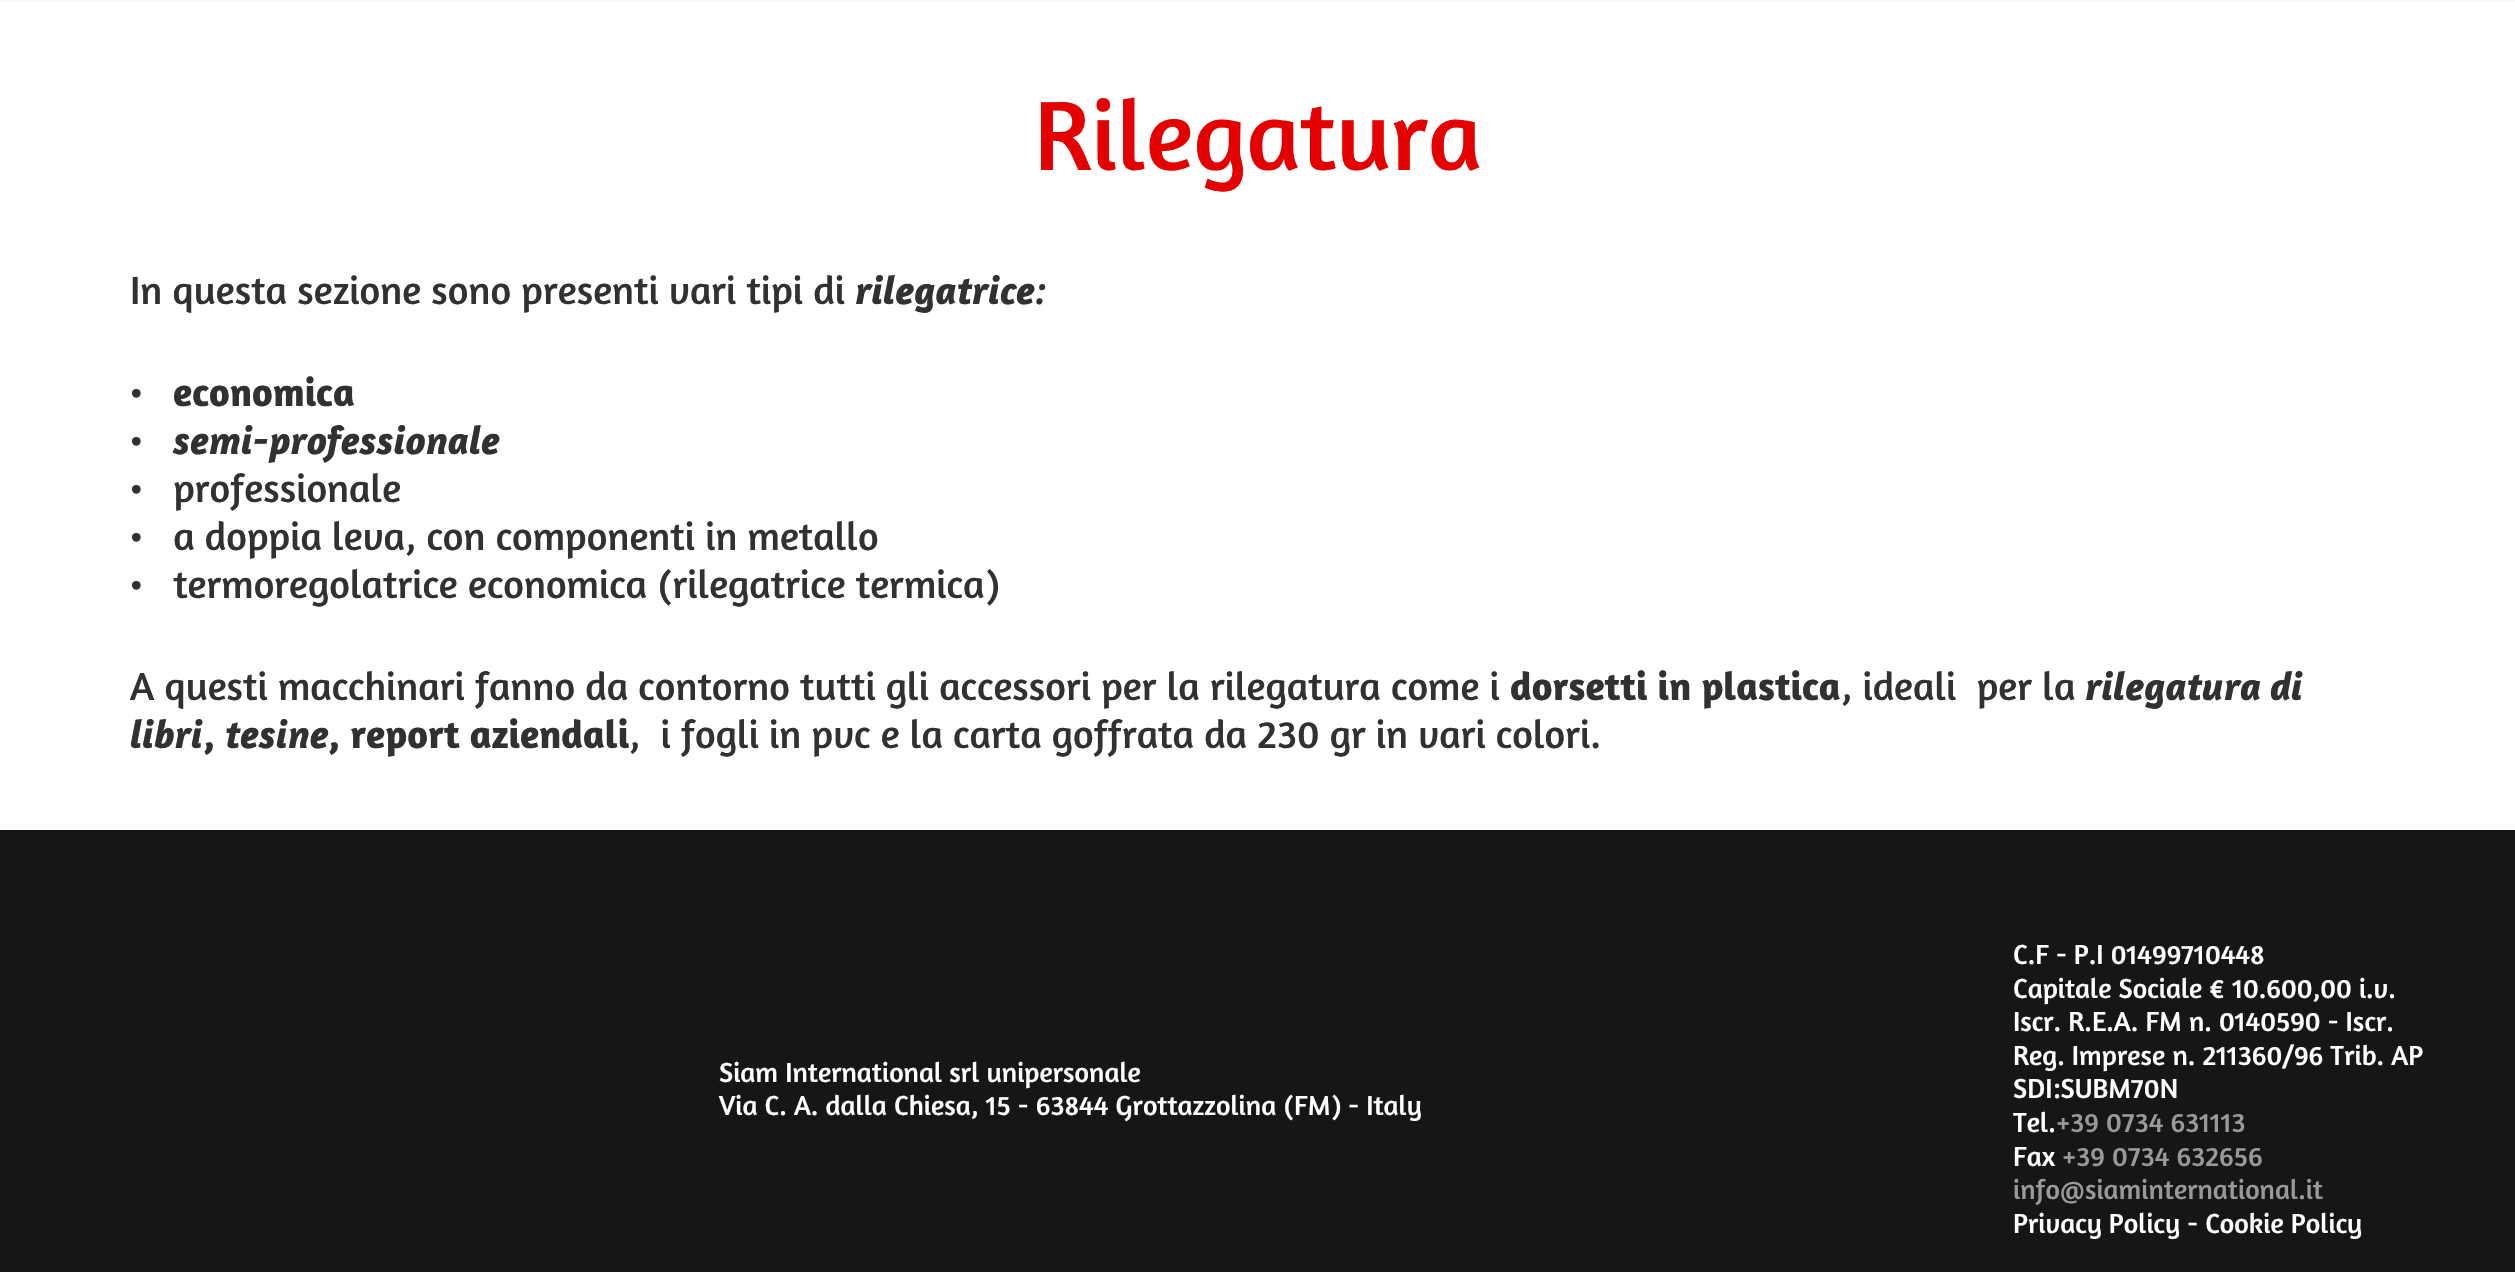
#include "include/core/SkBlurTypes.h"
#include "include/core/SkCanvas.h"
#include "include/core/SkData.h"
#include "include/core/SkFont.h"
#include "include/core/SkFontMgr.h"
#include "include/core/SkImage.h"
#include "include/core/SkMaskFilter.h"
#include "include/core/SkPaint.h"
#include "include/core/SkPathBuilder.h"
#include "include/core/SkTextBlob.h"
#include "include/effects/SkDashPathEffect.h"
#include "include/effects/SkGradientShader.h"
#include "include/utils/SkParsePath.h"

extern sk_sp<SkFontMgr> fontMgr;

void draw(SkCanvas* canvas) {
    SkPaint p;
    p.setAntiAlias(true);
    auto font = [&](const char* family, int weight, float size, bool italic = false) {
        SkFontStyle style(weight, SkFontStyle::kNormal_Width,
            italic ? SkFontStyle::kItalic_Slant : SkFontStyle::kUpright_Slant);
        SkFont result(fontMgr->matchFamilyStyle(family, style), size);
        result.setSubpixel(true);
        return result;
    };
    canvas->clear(0xFFF7F7F7);
    p.setColor(0xFFFFFFFF);
    canvas->drawRect(SkRect::MakeLTRB(0, 2, 2515, 830), p);
    auto font1 = font("Amaranth", 400, 100);
    p.setColor(0xFFE50000);
    canvas->drawString("Rilegatura", 1034, 170, font1, p);
    auto font2 = font("Amaranth", 400, 40);
    p.setColor(0xFF303133);
    canvas->drawString("In questa sezione sono presenti vari tipi di", 130, 304, font2, p);
    auto font3 = font("Amaranth", 700, 40, true);
    canvas->drawString("rilegatrice", 855, 304, font3, p);
    auto font4 = font("Amaranth", 400, 40, true);
    canvas->drawString(":", 1035, 304, font4, p);
    canvas->drawString("•", 130, 406, font2, p);
    auto font5 = font("Amaranth", 700, 40);
    canvas->drawString("economica", 173, 406, font5, p);
    canvas->drawString("•", 130, 454, font2, p);
    canvas->drawString("semi-professionale", 173, 454, font3, p);
    {
        const struct { const char* s; float x, y; } items[] = {
            {"•   professionale", 130, 502},
            {"•   a doppia leva, con componenti in metallo", 130, 550},
            {"•   termoregolatrice economica (rilegatrice termica)", 130, 598},
            {"A questi macchinari fanno da contorno tutti gli accessori per la rilegatura come i", 130, 700},
        };
        for (auto [s, x, y] : items) {
            canvas->drawString(s, x, y, font2, p);
        }
    }
    canvas->drawString("dorsetti in plastica", 1510, 700, font5, p);
    canvas->drawString(", ideali  per la", 1841, 700, font2, p);
    canvas->drawString("rilegatura di", 2085, 700, font3, p);
    canvas->drawString("libri", 130, 748, font3, p);
    canvas->drawString(",", 203, 748, font5, p);
    canvas->drawString("tesine", 225, 748, font3, p);
    canvas->drawString(", report aziendali", 328, 748, font5, p);
    canvas->drawString(",  i fogli in pvc e la carta goffrata da 230 gr in vari colori.", 629, 748, font2, p);
    p.setColor(0xFF141618);
    canvas->drawRect(SkRect::MakeLTRB(0, 830, 2515, 1272), p);
    auto font6 = font("Amaranth", 400, 28);
    p.setColor(0xFFFFFFFF);
    {
        const struct { const char* s; float x, y; } items[] = {
            {"Siam International srl unipersonale", 719, 1082},
            {"Via C. A. dalla Chiesa, 15 - 63844 Grottazzolina (FM) - Italy", 719, 1115},
            {"C.F - P.I 01499710448", 2013, 964},
            {"Capitale Sociale € 10.600,00 i.v.", 2013, 998},
            {"Iscr. R.E.A. FM n. 0140590 - Iscr.", 2013, 1031},
            {"Reg. Imprese n. 211360/96 Trib. AP", 2013, 1065},
            {"SDI:SUBM70N", 2013, 1098},
            {"Tel.", 2013, 1132},
        };
        for (auto [s, x, y] : items) {
            canvas->drawString(s, x, y, font6, p);
        }
    }
    p.setColor(0xFF999999);
    canvas->drawString("+39 0734 631113", 2056, 1132, font6, p);
    p.setColor(0xFFFFFFFF);
    canvas->drawString("Fax", 2013, 1166, font6, p);
    p.setColor(0xFF999999);
    canvas->drawString("+39 0734 632656", 2062, 1166, font6, p);
    canvas->drawString("info@siaminternational.it", 2013, 1199, font6, p);
    p.setColor(0xFFFFFFFF);
    canvas->drawString("Privacy Policy - Cookie Policy", 2013, 1233, font6, p);
}
